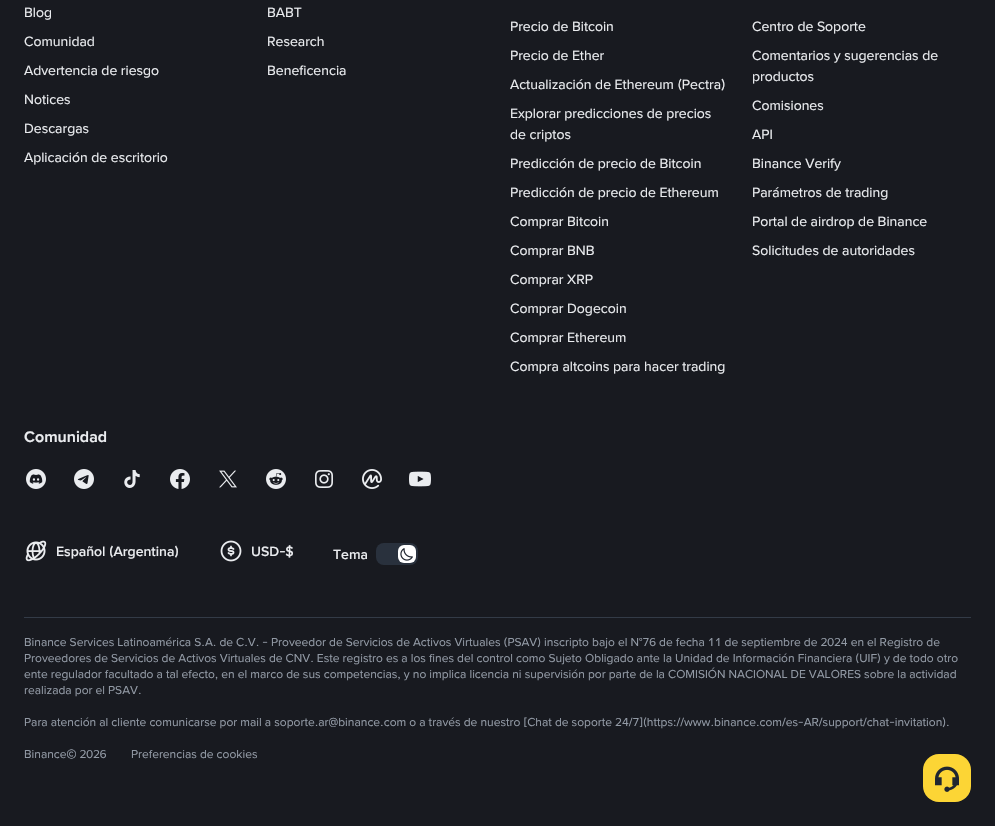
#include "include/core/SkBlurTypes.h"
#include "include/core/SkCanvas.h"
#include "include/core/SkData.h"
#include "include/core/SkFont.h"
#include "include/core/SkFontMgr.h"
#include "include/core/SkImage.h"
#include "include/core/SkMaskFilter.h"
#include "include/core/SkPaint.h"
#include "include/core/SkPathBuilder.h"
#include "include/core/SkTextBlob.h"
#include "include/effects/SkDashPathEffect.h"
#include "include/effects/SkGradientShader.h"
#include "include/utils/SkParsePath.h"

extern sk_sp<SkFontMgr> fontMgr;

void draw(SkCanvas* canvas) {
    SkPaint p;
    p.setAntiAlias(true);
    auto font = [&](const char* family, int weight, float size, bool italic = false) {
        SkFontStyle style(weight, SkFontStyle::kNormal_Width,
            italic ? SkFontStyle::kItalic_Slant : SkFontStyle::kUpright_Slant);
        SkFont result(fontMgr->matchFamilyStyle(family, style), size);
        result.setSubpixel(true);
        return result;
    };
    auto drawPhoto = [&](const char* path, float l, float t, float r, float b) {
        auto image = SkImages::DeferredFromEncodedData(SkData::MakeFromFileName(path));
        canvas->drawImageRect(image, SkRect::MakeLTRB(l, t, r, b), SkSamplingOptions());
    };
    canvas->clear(0xFF181A20);
    auto font1 = font("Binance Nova", 400, 14);
    p.setColor(0xFFEAECEF);
    {
        const struct { const char* s; float x, y; } items[] = {
            {"Blog", 24, 17},
            {"Comunidad", 24, 46},
            {"Advertencia de riesgo", 24, 75},
            {"Notices", 24, 104},
            {"Descargas", 24, 133},
            {"Aplicación de escritorio", 24, 162},
            {"BABT", 267, 17},
            {"Research", 267, 46},
            {"Beneficencia", 267, 75},
            {"Precio de Bitcoin", 510, 31},
            {"Precio de Ether", 510, 60},
            {"Actualización de Ethereum (Pectra)", 510, 89},
            {"Explorar predicciones de precios", 510, 118},
            {"de criptos", 510, 139},
            {"Predicción de precio de Bitcoin", 510, 168},
            {"Predicción de precio de Ethereum", 510, 197},
            {"Comprar Bitcoin", 510, 226},
            {"Comprar BNB", 510, 255},
            {"Comprar XRP", 510, 284},
            {"Comprar Dogecoin", 510, 313},
            {"Comprar Ethereum", 510, 342},
            {"Compra altcoins para hacer trading", 510, 371},
            {"Centro de Soporte", 752, 31},
            {"Comentarios y sugerencias de", 752, 60},
            {"productos", 752, 81},
            {"Comisiones", 752, 110},
            {"API", 752, 139},
            {"Binance Verify", 752, 168},
            {"Parámetros de trading", 752, 197},
            {"Portal de airdrop de Binance", 752, 226},
            {"Solicitudes de autoridades", 752, 255},
        };
        for (auto [s, x, y] : items) {
            canvas->drawString(s, x, y, font1, p);
        }
    }
    auto font2 = font("Binance Nova", 600, 16);
    canvas->drawString("Comunidad", 24, 442, font2, p);
    drawPhoto("media/1.png", 26, 469, 46, 489);
    drawPhoto("media/2.png", 74, 469, 94, 489);
    drawPhoto("media/3.png", 124, 470, 140, 488);
    drawPhoto("media/4.png", 170, 469, 190, 489);
    drawPhoto("media/5.png", 219, 470, 237, 488);
    drawPhoto("media/6.png", 266, 469, 286, 489);
    drawPhoto("media/7.png", 315, 470, 333, 488);
    drawPhoto("media/8.png", 362, 469, 382, 489);
    drawPhoto("media/9.png", 409, 471, 431, 487);
    drawPhoto("media/10.png", 25, 540, 47, 562);
    auto font3 = font("Binance Nova", 500, 14);
    canvas->drawString("Español (Argentina)", 56, 556, font3, p);
    drawPhoto("media/11.png", 220, 540, 242, 562);
    canvas->drawString("USD-$", 251, 556, font3, p);
    canvas->drawString("Tema", 333, 559, font3, p);
    p.setColor(0xFF29313D);
    canvas->drawRoundRect(SkRect::MakeLTRB(376, 543, 418, 565), 8, 8, p);
    p.setColor(0xFFFFFFFF);
    canvas->drawRoundRect(SkRect::MakeLTRB(398, 545, 416, 563), 6, 6, p);
    drawPhoto("media/12.png", 400, 548, 413, 561);
    p.setColor(0xFF333B47);
    canvas->drawRect(SkRect::MakeLTRB(24, 617, 971, 618), p);
    auto font4 = font("Binance Nova", 400, 12);
    p.setColor(0xFF929AA5);
    {
        const struct { const char* s; float x, y; } items[] = {
            {"Binance Services Latinoamérica S.A. de C.V. - Proveedor de Servicios de Activos Virtuales (PSAV) inscripto bajo el N°76 de fecha 11 de septiembre de 2024 en el Registro de", 24, 646},
            {"Proveedores de Servicios de Activos Virtuales de CNV. Este registro es a los fines del control como Sujeto Obligado ante la Unidad de Información Financiera (UIF) y de todo otro", 24, 662},
            {"ente regulador facultado a tal efecto, en el marco de sus competencias, y no implica licencia ni supervisión por parte de la COMISIÓN NACIONAL DE VALORES sobre la actividad", 24, 678},
            {"realizada por el PSAV.", 24, 694},
            {"Para atención al cliente comunicarse por mail a soporte.ar@binance.com o a través de nuestro [Chat de soporte 24/7](https://www.binance.com/es-AR/support/chat-invitation).", 24, 726},
            {"Binance© 2026", 24, 758},
            {"Preferencias de cookies", 131, 758},
        };
        for (auto [s, x, y] : items) {
            canvas->drawString(s, x, y, font4, p);
        }
    }
    p.setColor(0xFFFCD535);
    canvas->drawRoundRect(SkRect::MakeLTRB(923, 754, 971, 802), 16, 16, p);
    drawPhoto("media/13.png", 935, 766, 959, 792);
}
